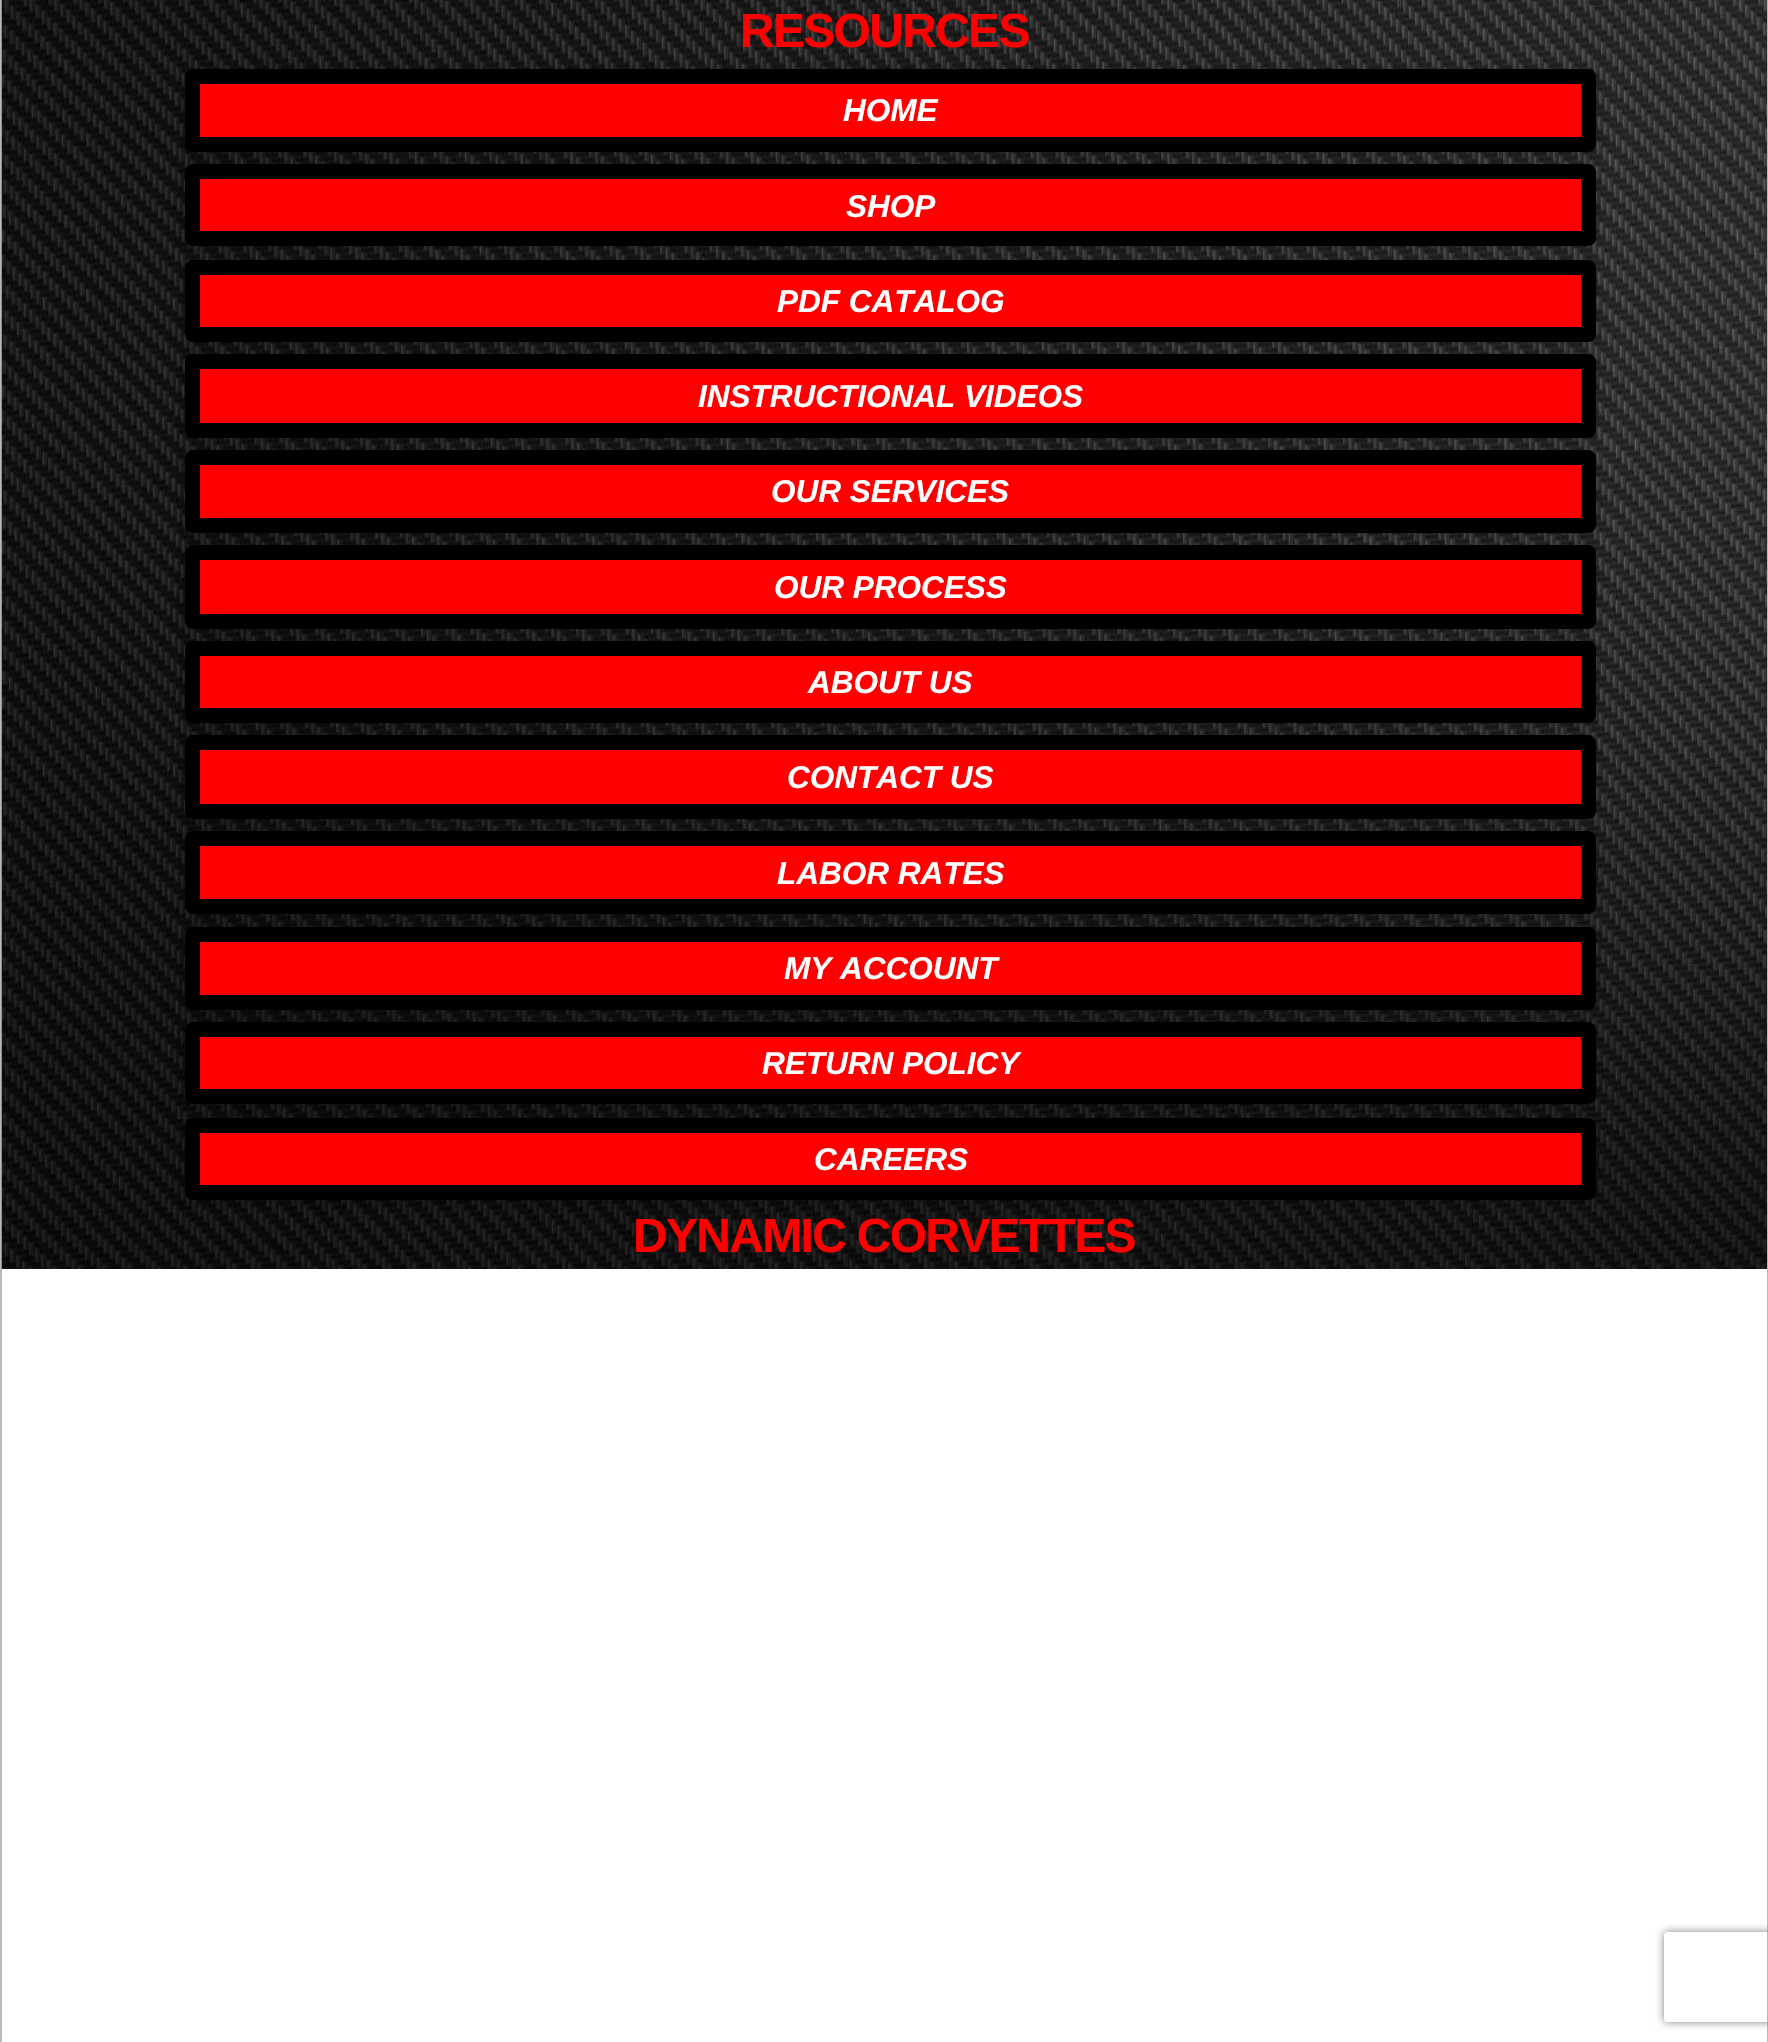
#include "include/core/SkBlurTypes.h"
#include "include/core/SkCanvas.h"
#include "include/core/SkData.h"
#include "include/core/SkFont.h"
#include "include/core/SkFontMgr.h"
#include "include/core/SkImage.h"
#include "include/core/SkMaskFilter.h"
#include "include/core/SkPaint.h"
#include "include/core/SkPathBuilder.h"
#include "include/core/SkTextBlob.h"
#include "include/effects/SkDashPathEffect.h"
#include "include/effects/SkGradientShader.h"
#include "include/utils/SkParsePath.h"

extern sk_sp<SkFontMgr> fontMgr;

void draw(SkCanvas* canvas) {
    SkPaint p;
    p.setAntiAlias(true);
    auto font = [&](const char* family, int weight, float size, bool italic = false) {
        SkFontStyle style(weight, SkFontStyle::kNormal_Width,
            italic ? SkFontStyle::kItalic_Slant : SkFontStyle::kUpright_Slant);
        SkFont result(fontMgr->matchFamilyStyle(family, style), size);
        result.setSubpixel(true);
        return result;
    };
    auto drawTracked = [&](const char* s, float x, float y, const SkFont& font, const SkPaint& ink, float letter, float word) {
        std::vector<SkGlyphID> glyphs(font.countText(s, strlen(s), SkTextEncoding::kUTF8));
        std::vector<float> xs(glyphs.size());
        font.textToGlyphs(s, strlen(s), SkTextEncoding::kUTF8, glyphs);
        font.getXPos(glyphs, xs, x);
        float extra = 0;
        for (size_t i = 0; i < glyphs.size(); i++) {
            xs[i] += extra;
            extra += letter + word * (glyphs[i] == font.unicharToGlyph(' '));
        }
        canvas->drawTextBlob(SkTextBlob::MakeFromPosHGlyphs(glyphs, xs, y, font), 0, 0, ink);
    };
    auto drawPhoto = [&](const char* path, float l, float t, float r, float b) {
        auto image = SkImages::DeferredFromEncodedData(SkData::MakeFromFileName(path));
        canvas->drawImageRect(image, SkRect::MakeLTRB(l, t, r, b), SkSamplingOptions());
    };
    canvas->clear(0xFFFFFFFF);
    p.setColor(0xFFB9B9B9);
    canvas->drawRect(SkRect::MakeLTRB(1767, 0, 1768, 2042), p);
    canvas->drawRect(SkRect::MakeLTRB(0, 0, 2, 2042), p);
    drawPhoto("media/1.png", 1, 0, 1767, 1269);
    auto font1 = font("Liberation Sans", 700, 48);
    p.setColor(0xFFFF0000);
    drawTracked("RESOURCES", 740, 47, font1, p, -1.7f, 0);
    p.setColor(0x40000000);
    p.setMaskFilter(SkMaskFilter::MakeBlur(kNormal_SkBlurStyle, 7));
    canvas->drawRoundRect(SkRect::MakeLTRB(185, 72, 1596, 155), 8, 8, p);
    p.setMaskFilter(nullptr);
    p.setColor(0xFFFF0000);
    canvas->drawRoundRect(SkRect::MakeLTRB(192.5f, 76.5f, 1588.5f, 144.5f), 0.5f, 0.5f, p);
    p.setStyle(SkPaint::kStroke_Style);
    p.setStrokeWidth(15);
    p.setColor(0xFF000000);
    canvas->drawRoundRect(SkRect::MakeLTRB(192.5f, 76.5f, 1588.5f, 144.5f), 0.5f, 0.5f, p);
    auto font2 = font("Liberation Sans", 700, 31.5f, true);
    p.setStyle(SkPaint::kFill_Style);
    p.setColor(0xFFFFFFFF);
    canvas->drawString("HOME", 843, 121, font2, p);
    p.setColor(0x40000000);
    p.setMaskFilter(SkMaskFilter::MakeBlur(kNormal_SkBlurStyle, 7));
    canvas->drawRoundRect(SkRect::MakeLTRB(185, 167, 1596, 249), 8, 8, p);
    p.setMaskFilter(nullptr);
    p.setColor(0xFFFF0000);
    canvas->drawRoundRect(SkRect::MakeLTRB(192.5f, 171.5f, 1588.5f, 238.5f), 0.5f, 0.5f, p);
    p.setStyle(SkPaint::kStroke_Style);
    p.setColor(0xFF000000);
    canvas->drawRoundRect(SkRect::MakeLTRB(192.5f, 171.5f, 1588.5f, 238.5f), 0.5f, 0.5f, p);
    p.setStyle(SkPaint::kFill_Style);
    p.setColor(0xFFFFFFFF);
    canvas->drawString("SHOP", 846, 217, font2, p);
    p.setColor(0x40000000);
    p.setMaskFilter(SkMaskFilter::MakeBlur(kNormal_SkBlurStyle, 7));
    canvas->drawRoundRect(SkRect::MakeLTRB(185, 263, 1596, 345), 8, 8, p);
    p.setMaskFilter(nullptr);
    p.setColor(0xFFFF0000);
    canvas->drawRoundRect(SkRect::MakeLTRB(192.5f, 267.5f, 1588.5f, 334.5f), 0.5f, 0.5f, p);
    p.setStyle(SkPaint::kStroke_Style);
    p.setColor(0xFF000000);
    canvas->drawRoundRect(SkRect::MakeLTRB(192.5f, 267.5f, 1588.5f, 334.5f), 0.5f, 0.5f, p);
    p.setStyle(SkPaint::kFill_Style);
    p.setColor(0xFFFFFFFF);
    canvas->drawString("PDF CATALOG", 777, 312, font2, p);
    p.setColor(0x40000000);
    p.setMaskFilter(SkMaskFilter::MakeBlur(kNormal_SkBlurStyle, 7));
    canvas->drawRoundRect(SkRect::MakeLTRB(185, 357, 1596, 441), 8, 8, p);
    p.setMaskFilter(nullptr);
    p.setColor(0xFFFF0000);
    canvas->drawRoundRect(SkRect::MakeLTRB(192.5f, 361.5f, 1588.5f, 430.5f), 0.5f, 0.5f, p);
    p.setStyle(SkPaint::kStroke_Style);
    p.setColor(0xFF000000);
    canvas->drawRoundRect(SkRect::MakeLTRB(192.5f, 361.5f, 1588.5f, 430.5f), 0.5f, 0.5f, p);
    p.setStyle(SkPaint::kFill_Style);
    p.setColor(0xFFFFFFFF);
    canvas->drawString("INSTRUCTIONAL VIDEOS", 698, 407, font2, p);
    p.setColor(0x40000000);
    p.setMaskFilter(SkMaskFilter::MakeBlur(kNormal_SkBlurStyle, 7));
    canvas->drawRoundRect(SkRect::MakeLTRB(185, 453, 1596, 536), 8, 8, p);
    p.setMaskFilter(nullptr);
    p.setColor(0xFFFF0000);
    canvas->drawRoundRect(SkRect::MakeLTRB(192.5f, 457.5f, 1588.5f, 525.5f), 0.5f, 0.5f, p);
    p.setStyle(SkPaint::kStroke_Style);
    p.setColor(0xFF000000);
    canvas->drawRoundRect(SkRect::MakeLTRB(192.5f, 457.5f, 1588.5f, 525.5f), 0.5f, 0.5f, p);
    p.setStyle(SkPaint::kFill_Style);
    p.setColor(0xFFFFFFFF);
    canvas->drawString("OUR SERVICES", 771, 502, font2, p);
    p.setColor(0x40000000);
    p.setMaskFilter(SkMaskFilter::MakeBlur(kNormal_SkBlurStyle, 7));
    canvas->drawRoundRect(SkRect::MakeLTRB(185, 548, 1596, 632), 8, 8, p);
    p.setMaskFilter(nullptr);
    p.setColor(0xFFFF0000);
    canvas->drawRoundRect(SkRect::MakeLTRB(192.5f, 552.5f, 1588.5f, 621.5f), 0.5f, 0.5f, p);
    p.setStyle(SkPaint::kStroke_Style);
    p.setColor(0xFF000000);
    canvas->drawRoundRect(SkRect::MakeLTRB(192.5f, 552.5f, 1588.5f, 621.5f), 0.5f, 0.5f, p);
    p.setStyle(SkPaint::kFill_Style);
    p.setColor(0xFFFFFFFF);
    canvas->drawString("OUR PROCESS", 774, 598, font2, p);
    p.setColor(0x40000000);
    p.setMaskFilter(SkMaskFilter::MakeBlur(kNormal_SkBlurStyle, 7));
    canvas->drawRoundRect(SkRect::MakeLTRB(185, 644, 1596, 726), 8, 8, p);
    p.setMaskFilter(nullptr);
    p.setColor(0xFFFF0000);
    canvas->drawRoundRect(SkRect::MakeLTRB(192.5f, 648.5f, 1588.5f, 715.5f), 0.5f, 0.5f, p);
    p.setStyle(SkPaint::kStroke_Style);
    p.setColor(0xFF000000);
    canvas->drawRoundRect(SkRect::MakeLTRB(192.5f, 648.5f, 1588.5f, 715.5f), 0.5f, 0.5f, p);
    p.setStyle(SkPaint::kFill_Style);
    p.setColor(0xFFFFFFFF);
    canvas->drawString("ABOUT US", 808, 693, font2, p);
    p.setColor(0x40000000);
    p.setMaskFilter(SkMaskFilter::MakeBlur(kNormal_SkBlurStyle, 7));
    canvas->drawRoundRect(SkRect::MakeLTRB(185, 738, 1596, 822), 8, 8, p);
    p.setMaskFilter(nullptr);
    p.setColor(0xFFFF0000);
    canvas->drawRoundRect(SkRect::MakeLTRB(192.5f, 742.5f, 1588.5f, 811.5f), 0.5f, 0.5f, p);
    p.setStyle(SkPaint::kStroke_Style);
    p.setColor(0xFF000000);
    canvas->drawRoundRect(SkRect::MakeLTRB(192.5f, 742.5f, 1588.5f, 811.5f), 0.5f, 0.5f, p);
    p.setStyle(SkPaint::kFill_Style);
    p.setColor(0xFFFFFFFF);
    canvas->drawString("CONTACT US", 787, 788, font2, p);
    p.setColor(0x40000000);
    p.setMaskFilter(SkMaskFilter::MakeBlur(kNormal_SkBlurStyle, 7));
    canvas->drawRoundRect(SkRect::MakeLTRB(185, 834, 1596, 917), 8, 8, p);
    p.setMaskFilter(nullptr);
    p.setColor(0xFFFF0000);
    canvas->drawRoundRect(SkRect::MakeLTRB(192.5f, 838.5f, 1588.5f, 906.5f), 0.5f, 0.5f, p);
    p.setStyle(SkPaint::kStroke_Style);
    p.setColor(0xFF000000);
    canvas->drawRoundRect(SkRect::MakeLTRB(192.5f, 838.5f, 1588.5f, 906.5f), 0.5f, 0.5f, p);
    p.setStyle(SkPaint::kFill_Style);
    p.setColor(0xFFFFFFFF);
    canvas->drawString("LABOR RATES", 777, 884, font2, p);
    p.setColor(0x40000000);
    p.setMaskFilter(SkMaskFilter::MakeBlur(kNormal_SkBlurStyle, 7));
    canvas->drawRoundRect(SkRect::MakeLTRB(185, 930, 1596, 1013), 8, 8, p);
    p.setMaskFilter(nullptr);
    p.setColor(0xFFFF0000);
    canvas->drawRoundRect(SkRect::MakeLTRB(192.5f, 934.5f, 1588.5f, 1002.5f), 0.5f, 0.5f, p);
    p.setStyle(SkPaint::kStroke_Style);
    p.setColor(0xFF000000);
    canvas->drawRoundRect(SkRect::MakeLTRB(192.5f, 934.5f, 1588.5f, 1002.5f), 0.5f, 0.5f, p);
    p.setStyle(SkPaint::kFill_Style);
    p.setColor(0xFFFFFFFF);
    canvas->drawString("MY ACCOUNT", 784, 979, font2, p);
    p.setColor(0x40000000);
    p.setMaskFilter(SkMaskFilter::MakeBlur(kNormal_SkBlurStyle, 7));
    canvas->drawRoundRect(SkRect::MakeLTRB(185, 1025, 1596, 1107), 8, 8, p);
    p.setMaskFilter(nullptr);
    p.setColor(0xFFFF0000);
    canvas->drawRoundRect(SkRect::MakeLTRB(192.5f, 1029.5f, 1588.5f, 1096.5f), 0.5f, 0.5f, p);
    p.setStyle(SkPaint::kStroke_Style);
    p.setColor(0xFF000000);
    canvas->drawRoundRect(SkRect::MakeLTRB(192.5f, 1029.5f, 1588.5f, 1096.5f), 0.5f, 0.5f, p);
    p.setStyle(SkPaint::kFill_Style);
    p.setColor(0xFFFFFFFF);
    canvas->drawString("RETURN POLICY", 762, 1074, font2, p);
    p.setColor(0x40000000);
    p.setMaskFilter(SkMaskFilter::MakeBlur(kNormal_SkBlurStyle, 7));
    canvas->drawRoundRect(SkRect::MakeLTRB(185, 1121, 1596, 1203), 8, 8, p);
    p.setMaskFilter(nullptr);
    p.setColor(0xFFFF0000);
    canvas->drawRoundRect(SkRect::MakeLTRB(192.5f, 1125.5f, 1588.5f, 1192.5f), 0.5f, 0.5f, p);
    p.setStyle(SkPaint::kStroke_Style);
    p.setColor(0xFF000000);
    canvas->drawRoundRect(SkRect::MakeLTRB(192.5f, 1125.5f, 1588.5f, 1192.5f), 0.5f, 0.5f, p);
    p.setStyle(SkPaint::kFill_Style);
    p.setColor(0xFFFFFFFF);
    canvas->drawString("CAREERS", 814, 1170, font2, p);
    p.setColor(0xFFFF0000);
    drawTracked("DYNAMIC CORVETTES", 633, 1252, font1, p, -1.7f, 0);
    canvas->save();
    canvas->clipPath(SkPathBuilder(SkPathFillType::kEvenOdd).moveTo(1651, 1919).lineTo(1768, 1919).lineTo(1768, 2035).lineTo(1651, 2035).close().moveTo(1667, 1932).lineTo(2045, 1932).cubicTo(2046.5f, 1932, 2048, 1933.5f, 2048, 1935).lineTo(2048, 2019).cubicTo(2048, 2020.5f, 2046.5f, 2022, 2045, 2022).lineTo(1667, 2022).cubicTo(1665.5f, 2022, 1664, 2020.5f, 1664, 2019).lineTo(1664, 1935).cubicTo(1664, 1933.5f, 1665.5f, 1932, 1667, 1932).close().detach(), true);
    p.setColor(0xFF808080);
    p.setMaskFilter(SkMaskFilter::MakeBlur(kNormal_SkBlurStyle, 4));
    canvas->drawRoundRect(SkRect::MakeLTRB(1664, 1932, 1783, 2022), 3, 3, p);
    p.setMaskFilter(nullptr);
    canvas->restore();
}
